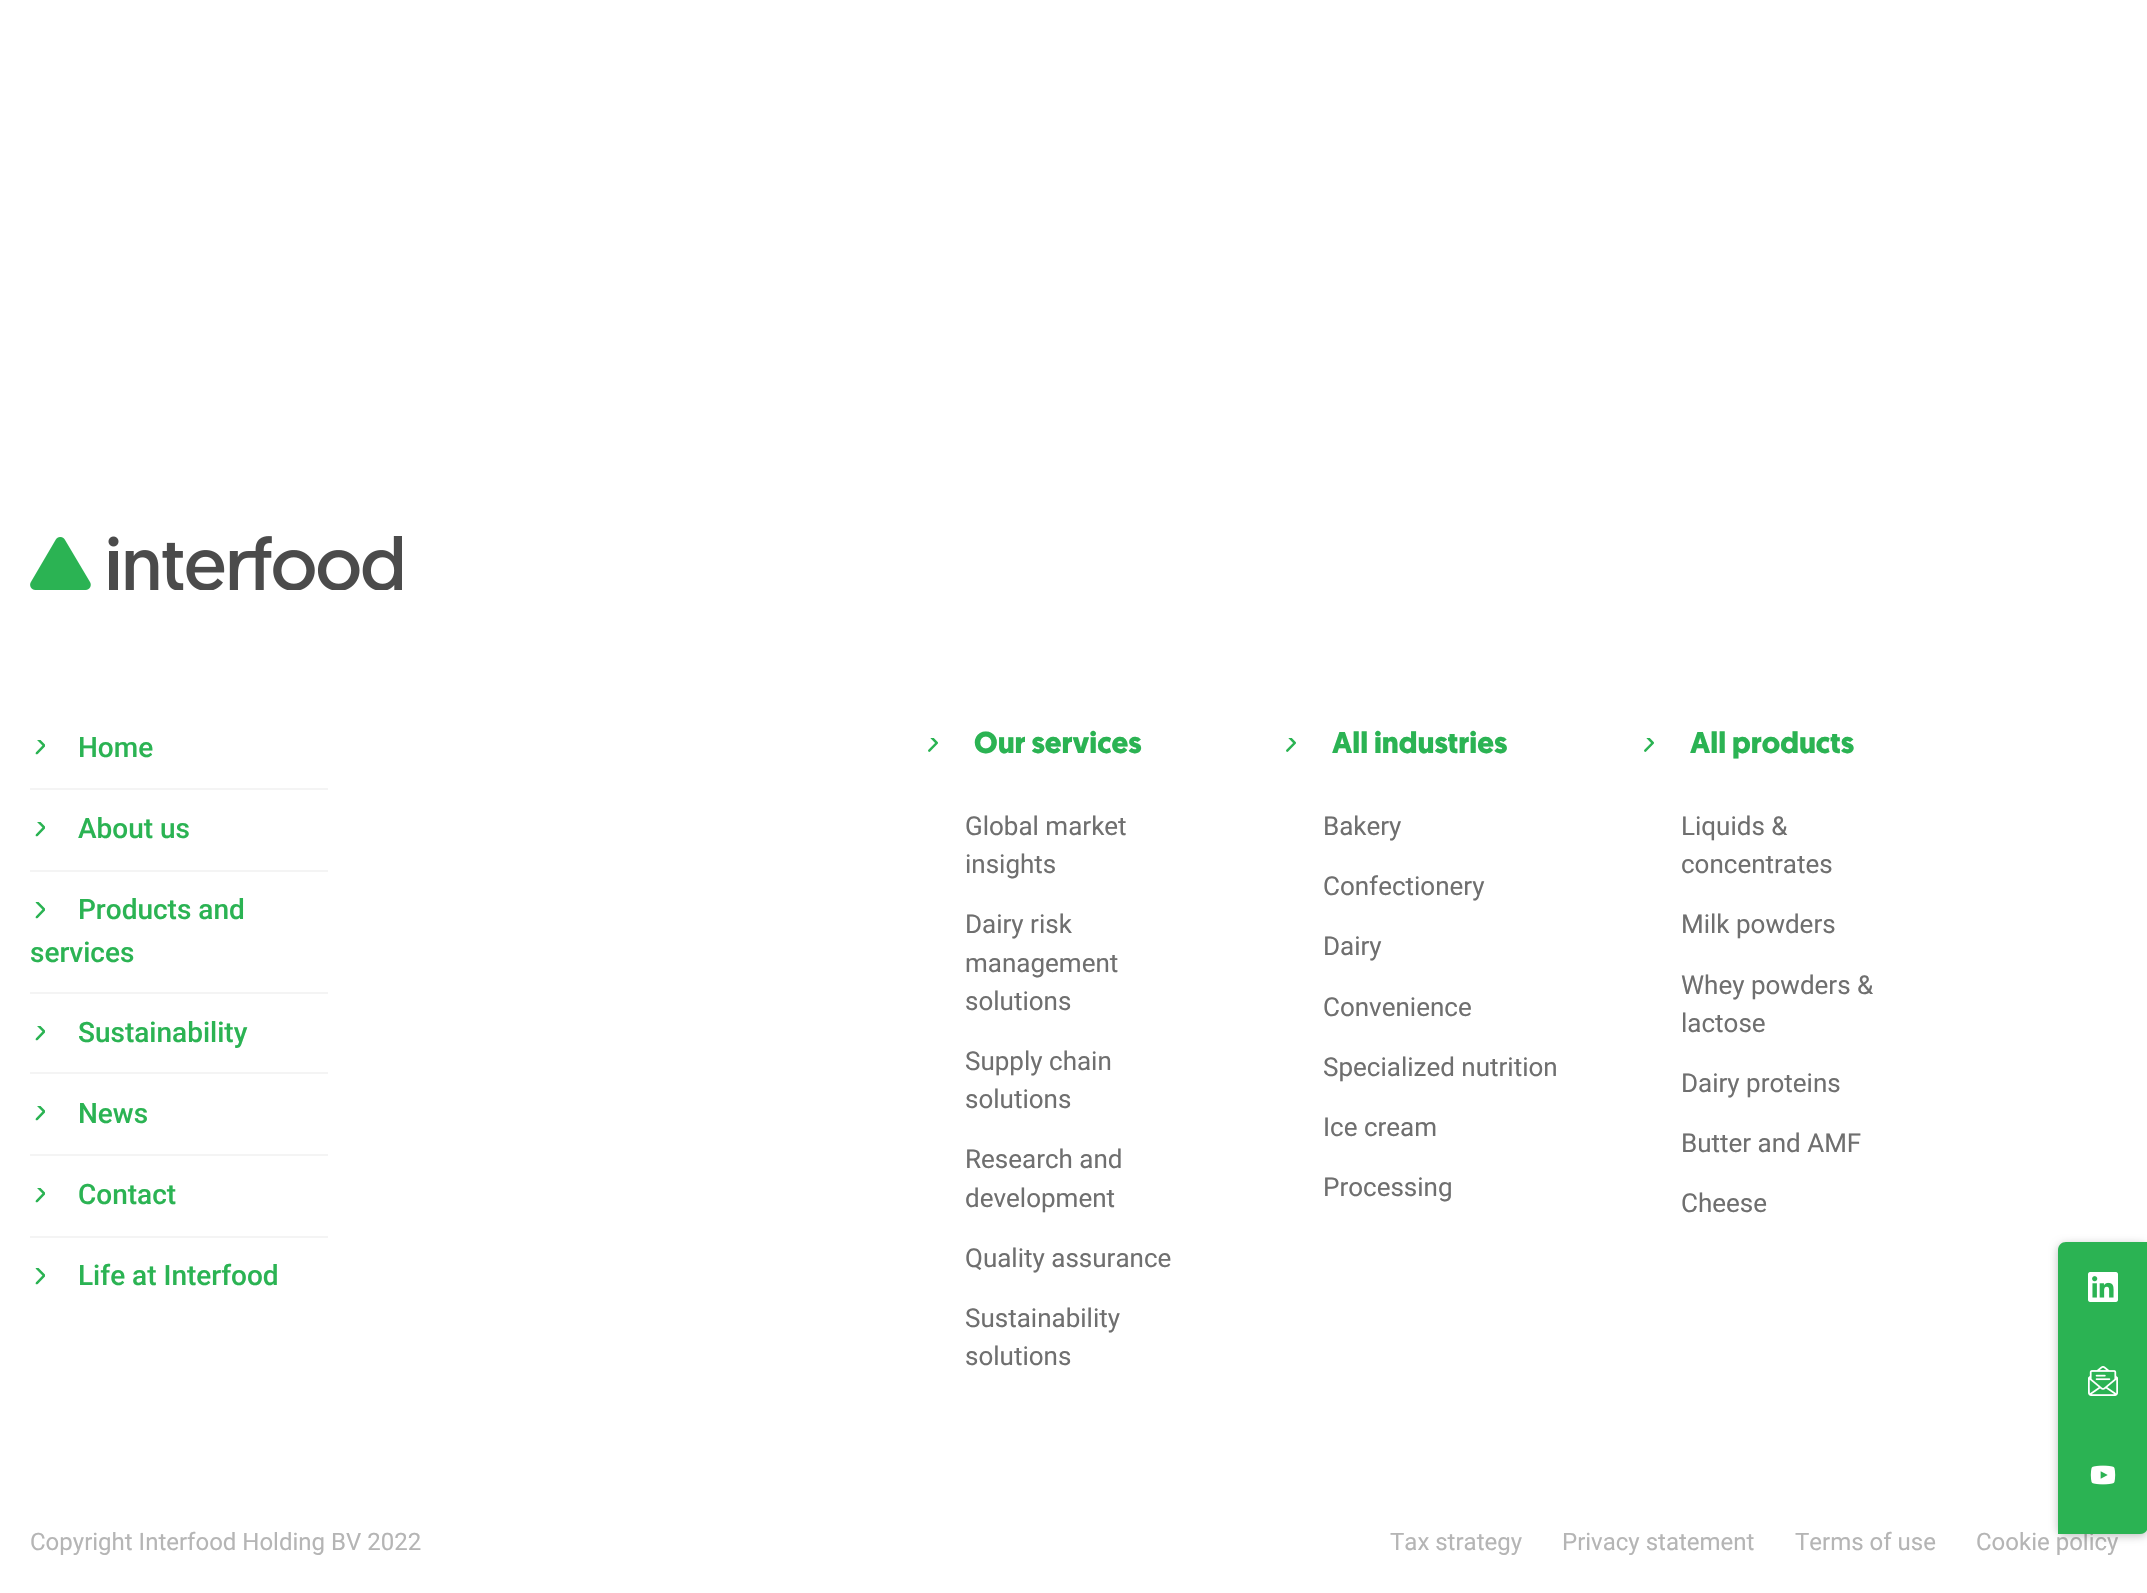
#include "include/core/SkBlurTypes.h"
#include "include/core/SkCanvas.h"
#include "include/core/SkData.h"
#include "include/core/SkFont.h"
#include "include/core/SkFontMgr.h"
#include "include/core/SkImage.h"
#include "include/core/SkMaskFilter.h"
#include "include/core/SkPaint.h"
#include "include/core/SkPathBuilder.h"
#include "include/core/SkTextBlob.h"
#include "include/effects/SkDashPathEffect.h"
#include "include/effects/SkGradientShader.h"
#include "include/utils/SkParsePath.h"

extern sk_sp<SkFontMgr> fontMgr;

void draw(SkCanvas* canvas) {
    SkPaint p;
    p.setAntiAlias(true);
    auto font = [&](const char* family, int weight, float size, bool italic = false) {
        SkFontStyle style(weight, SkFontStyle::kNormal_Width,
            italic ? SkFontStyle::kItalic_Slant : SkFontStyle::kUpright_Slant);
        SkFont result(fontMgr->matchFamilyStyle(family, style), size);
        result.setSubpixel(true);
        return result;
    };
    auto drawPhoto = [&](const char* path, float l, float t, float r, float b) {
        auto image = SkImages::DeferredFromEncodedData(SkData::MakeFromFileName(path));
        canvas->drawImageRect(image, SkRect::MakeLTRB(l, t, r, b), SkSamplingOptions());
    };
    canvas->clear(0xFFFFFFFF);
    drawPhoto("media/1.png", 30, 536, 402, 590);
    drawPhoto("media/2.png", 35, 740, 45, 755);
    auto font1 = font("Roboto", 500, 28);
    p.setColor(0xFF2BB353);
    canvas->drawString("Home", 78, 757, font1, p);
    p.setColor(0xFFF4F4F4);
    canvas->drawRect(SkRect::MakeLTRB(30, 788, 328, 790), p);
    drawPhoto("media/3.png", 35, 822, 45, 837);
    p.setColor(0xFF2BB353);
    canvas->drawString("About us", 78, 838, font1, p);
    p.setColor(0xFFF4F4F4);
    canvas->drawRect(SkRect::MakeLTRB(30, 870, 328, 872), p);
    drawPhoto("media/4.png", 35, 902, 45, 919);
    p.setColor(0xFF2BB353);
    canvas->drawString("Products and", 78, 919, font1, p);
    canvas->drawString("services", 30, 962, font1, p);
    p.setColor(0xFFF4F4F4);
    canvas->drawRect(SkRect::MakeLTRB(30, 992, 328, 994), p);
    drawPhoto("media/3.png", 35, 1026, 45, 1041);
    p.setColor(0xFF2BB353);
    canvas->drawString("Sustainability", 78, 1042, font1, p);
    p.setColor(0xFFF4F4F4);
    canvas->drawRect(SkRect::MakeLTRB(30, 1072, 328, 1074), p);
    drawPhoto("media/3.png", 35, 1106, 45, 1121);
    p.setColor(0xFF2BB353);
    canvas->drawString("News", 78, 1123, font1, p);
    p.setColor(0xFFF4F4F4);
    canvas->drawRect(SkRect::MakeLTRB(30, 1154, 328, 1156), p);
    drawPhoto("media/3.png", 35, 1188, 45, 1203);
    p.setColor(0xFF2BB353);
    canvas->drawString("Contact", 78, 1204, font1, p);
    p.setColor(0xFFF4F4F4);
    canvas->drawRect(SkRect::MakeLTRB(30, 1236, 328, 1238), p);
    drawPhoto("media/4.png", 35, 1268, 45, 1285);
    p.setColor(0xFF2BB353);
    canvas->drawString("Life at Interfood", 78, 1285, font1, p);
    drawPhoto("media/5.png", 928, 738, 938, 752);
    auto font2 = font("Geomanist", 700, 30);
    canvas->drawString("Our services", 974, 753, font2, p);
    auto font3 = font("Roboto", 400, 26);
    p.setColor(0xFF6F6F6F);
    {
        const struct { const char* s; float x, y; } items[] = {
            {"Global market", 965, 835},
            {"insights", 965, 873},
            {"Dairy risk", 965, 933},
            {"management", 965, 972},
            {"solutions", 965, 1010},
            {"Supply chain", 965, 1070},
            {"solutions", 965, 1108},
            {"Research and", 965, 1168},
            {"development", 965, 1207},
            {"Quality assurance", 965, 1267},
            {"Sustainability", 965, 1327},
            {"solutions", 965, 1365},
        };
        for (auto [s, x, y] : items) {
            canvas->drawString(s, x, y, font3, p);
        }
    }
    drawPhoto("media/5.png", 1286, 738, 1296, 752);
    p.setColor(0xFF2BB353);
    canvas->drawString("All industries", 1332, 753, font2, p);
    p.setColor(0xFF6F6F6F);
    {
        const struct { const char* s; float x, y; } items[] = {
            {"Bakery", 1323, 835},
            {"Confectionery", 1323, 895},
            {"Dairy", 1323, 955},
            {"Convenience", 1323, 1016},
            {"Specialized nutrition", 1323, 1076},
            {"Ice cream", 1323, 1136},
            {"Processing", 1323, 1196},
        };
        for (auto [s, x, y] : items) {
            canvas->drawString(s, x, y, font3, p);
        }
    }
    drawPhoto("media/5.png", 1644, 738, 1654, 752);
    p.setColor(0xFF2BB353);
    canvas->drawString("All products", 1690, 753, font2, p);
    p.setColor(0xFF6F6F6F);
    {
        const struct { const char* s; float x, y; } items[] = {
            {"Liquids &", 1681, 835},
            {"concentrates", 1681, 873},
            {"Milk powders", 1681, 933},
            {"Whey powders &", 1681, 994},
            {"lactose", 1681, 1032},
            {"Dairy proteins", 1681, 1092},
            {"Butter and AMF", 1681, 1152},
            {"Cheese", 1681, 1212},
        };
        for (auto [s, x, y] : items) {
            canvas->drawString(s, x, y, font3, p);
        }
    }
    auto font4 = font("Roboto", 400, 24);
    p.setColor(0xFFB5B5B5);
    {
        const struct { const char* s; float x, y; } items[] = {
            {"Copyright Interfood Holding BV 2022", 30, 1550},
            {"Tax strategy", 1390, 1550},
            {"Privacy statement", 1562, 1550},
            {"Terms of use", 1795, 1550},
            {"Cookie policy", 1976, 1550},
        };
        for (auto [s, x, y] : items) {
            canvas->drawString(s, x, y, font4, p);
        }
    }
    p.setColor(0x40000000);
    p.setMaskFilter(SkMaskFilter::MakeBlur(kNormal_SkBlurStyle, 4));
    canvas->drawRoundRect(SkRect::MakeLTRB(2058, 1244, 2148, 1536), 8, 8, p);
    p.setMaskFilter(nullptr);
    p.setColor(0xFF2BB353);
    canvas->drawPath(SkPathBuilder().moveTo(2066, 1242).lineTo(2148, 1242).lineTo(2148, 1526).cubicTo(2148, 1530.5f, 2144.5f, 1534, 2140, 1534).lineTo(2058, 1534).lineTo(2058, 1250).cubicTo(2058, 1245.5f, 2061.5f, 1242, 2066, 1242).close().detach(), p);
    drawPhoto("media/6.png", 2088, 1272, 2118, 1302);
    drawPhoto("media/7.png", 2088, 1366, 2118, 1396);
    drawPhoto("media/8.png", 2090, 1465, 2116, 1485);
}
